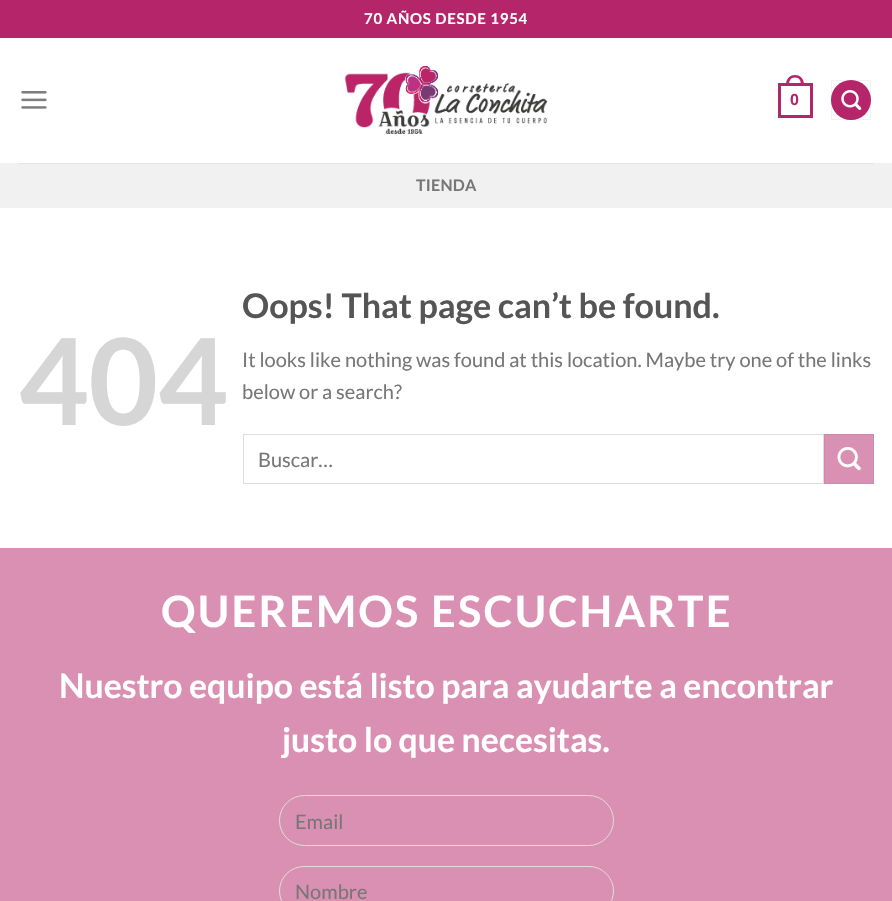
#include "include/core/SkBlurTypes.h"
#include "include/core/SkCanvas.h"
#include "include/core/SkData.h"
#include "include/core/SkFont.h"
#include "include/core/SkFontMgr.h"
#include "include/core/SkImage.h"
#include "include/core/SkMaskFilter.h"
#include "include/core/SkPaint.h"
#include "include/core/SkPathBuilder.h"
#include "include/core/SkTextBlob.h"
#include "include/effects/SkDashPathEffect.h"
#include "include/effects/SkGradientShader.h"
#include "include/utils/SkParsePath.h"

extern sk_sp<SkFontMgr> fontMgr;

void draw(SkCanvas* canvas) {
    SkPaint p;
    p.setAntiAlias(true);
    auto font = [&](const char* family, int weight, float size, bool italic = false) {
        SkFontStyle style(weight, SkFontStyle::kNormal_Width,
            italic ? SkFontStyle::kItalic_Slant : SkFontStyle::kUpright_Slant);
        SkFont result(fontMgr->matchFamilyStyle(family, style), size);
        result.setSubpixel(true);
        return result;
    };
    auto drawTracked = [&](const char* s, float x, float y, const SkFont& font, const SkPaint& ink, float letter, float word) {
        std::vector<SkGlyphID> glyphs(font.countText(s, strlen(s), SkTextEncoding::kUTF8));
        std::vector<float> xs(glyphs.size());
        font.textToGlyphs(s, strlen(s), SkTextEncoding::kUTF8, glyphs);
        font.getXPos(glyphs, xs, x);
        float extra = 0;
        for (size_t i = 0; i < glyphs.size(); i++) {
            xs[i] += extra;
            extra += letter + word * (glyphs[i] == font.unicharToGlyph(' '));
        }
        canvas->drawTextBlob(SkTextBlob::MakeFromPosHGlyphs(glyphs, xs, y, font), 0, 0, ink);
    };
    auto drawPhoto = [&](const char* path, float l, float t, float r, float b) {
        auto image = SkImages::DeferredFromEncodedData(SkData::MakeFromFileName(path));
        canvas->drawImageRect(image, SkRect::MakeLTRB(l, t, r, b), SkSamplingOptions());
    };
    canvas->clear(0xFFFFFFFF);
    p.setColor(0xFFB5256A);
    canvas->drawRect(SkRect::MakeLTRB(0, 0, 892, 38), p);
    auto font1 = font("Lato", 700, 15);
    p.setColor(0xFFFFFFFF);
    drawTracked("70 AÑOS DESDE 1954", 364, 24, font1, p, 0.75f, 0);
    drawPhoto("media/1.png", 21, 91, 47, 109);
    drawPhoto("media/2.png", 344, 66, 548, 134);
    p.setStyle(SkPaint::kStroke_Style);
    p.setStrokeWidth(3);
    p.setColor(0xFFB5256A);
    canvas->drawRect(SkRect::MakeLTRB(779.5f, 84.5f, 811.5f, 116.5f), p);
    p.setStyle(SkPaint::kFill_Style);
    canvas->drawPath(SkPathBuilder(SkPathFillType::kEvenOdd).moveTo(795, 75).cubicTo(801, 75, 804, 79.5f, 804, 85).lineTo(786, 85).cubicTo(786, 79.5f, 789, 75, 795, 75).close().moveTo(795, 77.5f).cubicTo(799.5f, 77.5f, 801, 81, 801, 85).lineTo(789, 85).cubicTo(789, 81, 790.5f, 77.5f, 795, 77.5f).close().detach(), p);
    auto font2 = font("Liberation Sans", 700, 16);
    canvas->drawString("0", 790, 105, font2, p);
    canvas->drawCircle(851, 100, 20, p);
    p.setStyle(SkPaint::kStroke_Style);
    p.setStrokeWidth(1);
    p.setColor(0x0D000000);
    canvas->drawRect(SkRect::MakeLTRB(831.5f, 80.5f, 870.5f, 119.5f), p);
    drawPhoto("media/3.png", 841, 90, 862, 110);
    p.setStyle(SkPaint::kFill_Style);
    p.setColor(0xFFF1F1F1);
    canvas->drawRect(SkRect::MakeLTRB(0, 163, 892, 208), p);
    p.setColor(0xFFE5E5E5);
    canvas->drawRect(SkRect::MakeLTRB(19, 163, 874, 164), p);
    auto font3 = font("Lato", 700, 16);
    p.setColor(0xFF777777);
    drawTracked("TIENDA", 416, 191, font3, p, 0.25f, 0);
    auto font4 = font("Lato", 700, 120);
    p.setColor(0xFFD6D6D6);
    canvas->drawString("404", 19, 425, font4, p);
    auto font5 = font("Lato", 700, 34);
    p.setColor(0xFF555555);
    canvas->drawString("Oops! That page can’t be found.", 242, 318, font5, p);
    auto font6 = font("Lato", 400, 20);
    p.setColor(0xFF777777);
    canvas->drawString("It looks like nothing was found at this location. Maybe try one of the links", 242, 367, font6, p);
    canvas->drawString("below or a search?", 242, 399, font6, p);
    p.setStyle(SkPaint::kStroke_Style);
    p.setColor(0xFFDDDDDD);
    canvas->drawRect(SkRect::MakeLTRB(243.5f, 434.5f, 823.5f, 483.5f), p);
    p.setStyle(SkPaint::kFill_Style);
    p.setColor(0xFF777777);
    canvas->drawString("Buscar…", 258, 467, font6, p);
    p.setColor(0xFFDA90B3);
    canvas->drawRect(SkRect::MakeLTRB(824.5f, 434.5f, 873.5f, 483.5f), p);
    p.setStyle(SkPaint::kStroke_Style);
    p.setColor(0xFFCF89AA);
    canvas->drawRect(SkRect::MakeLTRB(824.5f, 434.5f, 873.5f, 483.5f), p);
    drawPhoto("media/4.png", 837, 446, 861, 471);
    p.setStyle(SkPaint::kFill_Style);
    p.setColor(0xFFDA90B3);
    canvas->drawRect(SkRect::MakeLTRB(0, 548, 892, 901), p);
    auto font7 = font("Lato", 700, 43.25f);
    p.setColor(0xFFFFFFFF);
    drawTracked("QUEREMOS ESCUCHARTE", 161, 627, font7, p, 2.2f, 0);
    auto font8 = font("Lato", 700, 33.75f);
    canvas->drawString("Nuestro equipo está listo para ayudarte a encontrar", 59, 698, font8, p);
    canvas->drawString("justo lo que necesitas.", 282, 752, font8, p);
    p.setStyle(SkPaint::kStroke_Style);
    p.setColor(0xFFDDDDDD);
    canvas->drawRoundRect(SkRect::MakeLTRB(279.5f, 795.5f, 613.5f, 845.5f), 25, 25, p);
    p.setStyle(SkPaint::kFill_Style);
    p.setColor(0xFF777777);
    canvas->drawString("Email", 295, 829, font6, p);
    p.setStyle(SkPaint::kStroke_Style);
    p.setColor(0xFFDDDDDD);
    canvas->drawRoundRect(SkRect::MakeLTRB(279.5f, 866.5f, 613.5f, 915.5f), 24.5f, 24.5f, p);
    p.setStyle(SkPaint::kFill_Style);
    p.setColor(0xFF777777);
    canvas->drawString("Nombre", 295, 899, font6, p);
}
